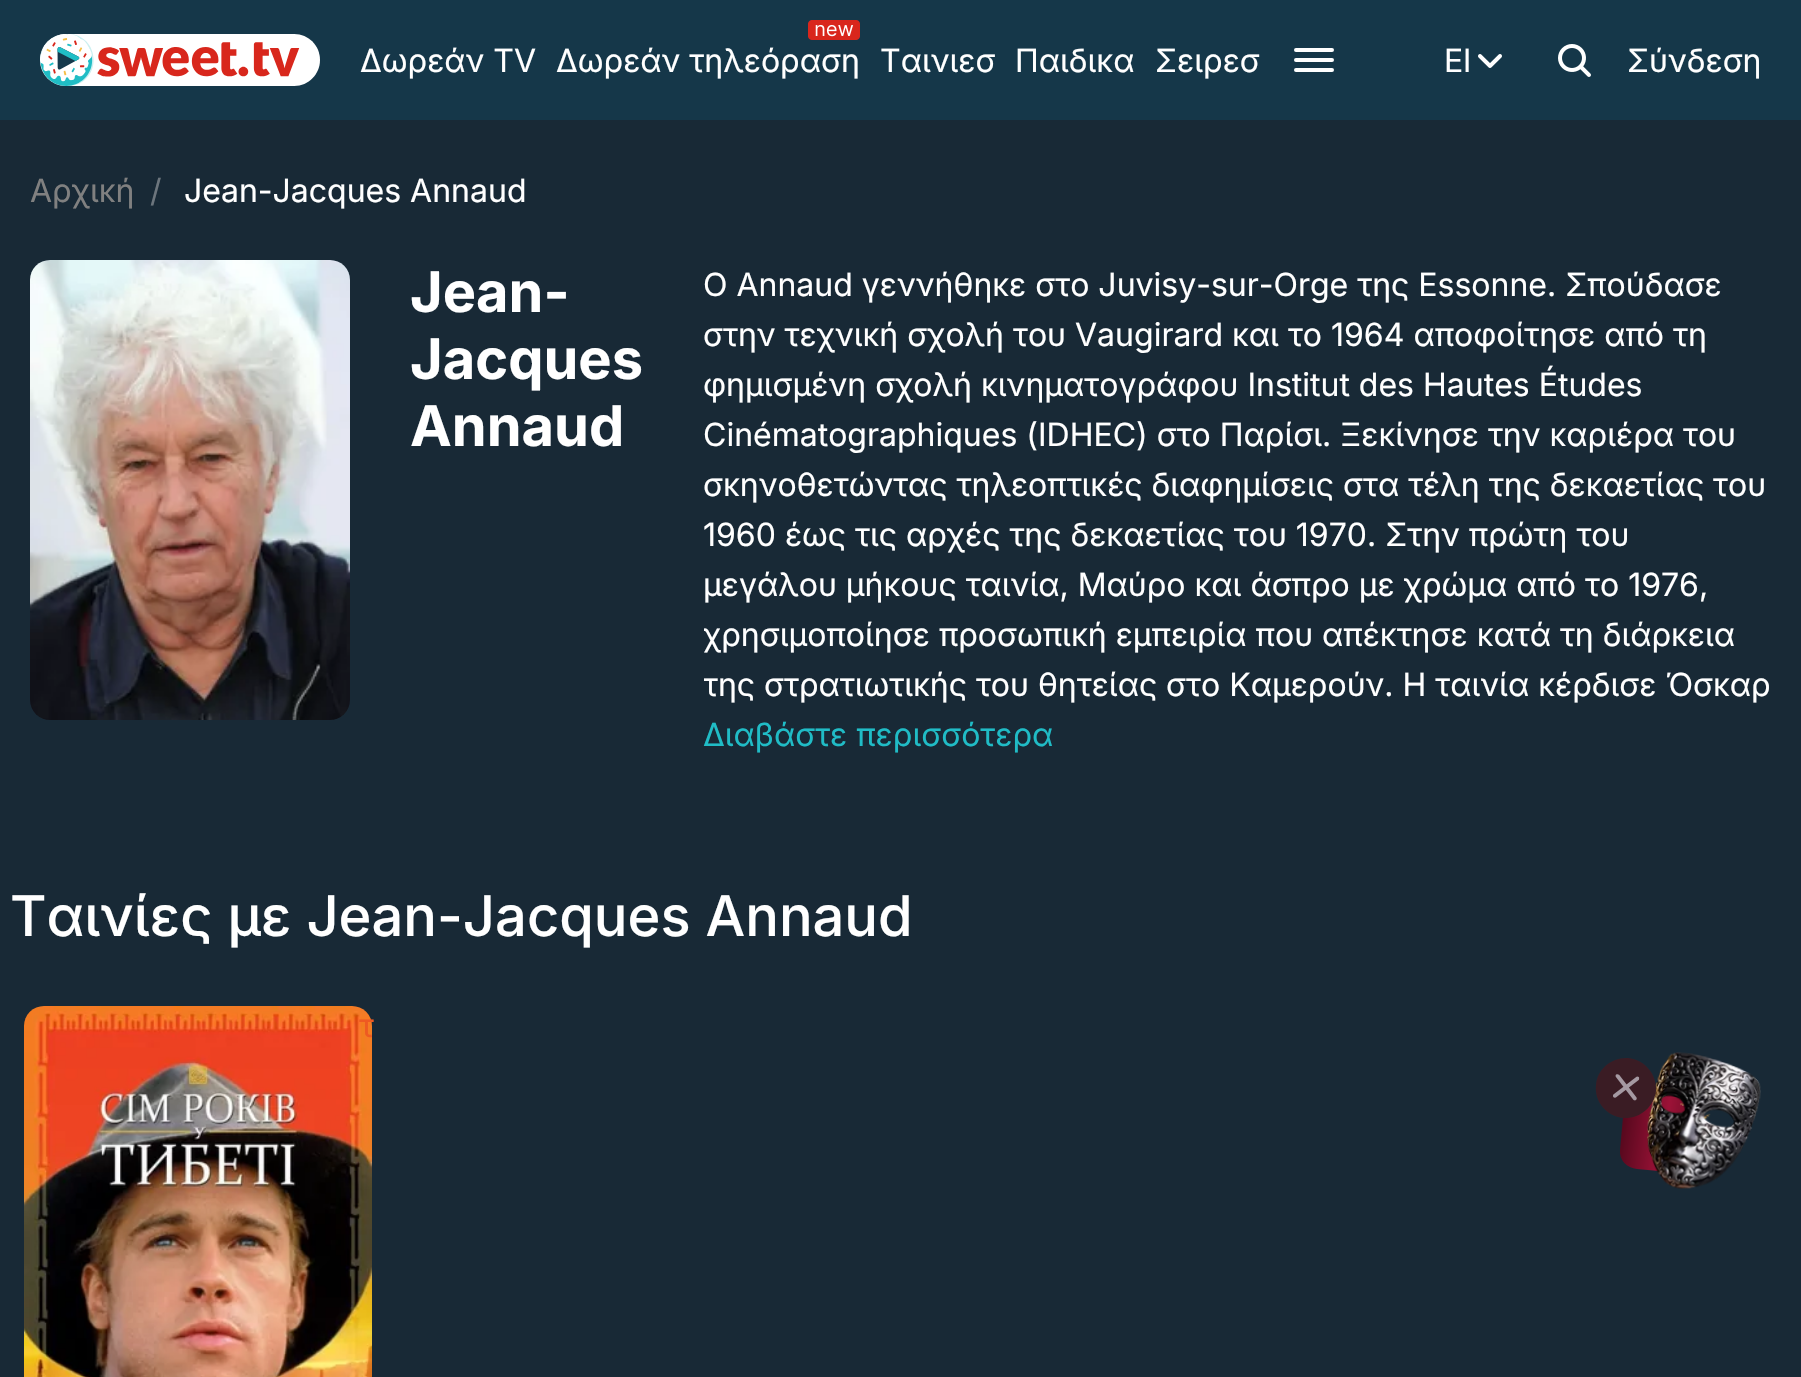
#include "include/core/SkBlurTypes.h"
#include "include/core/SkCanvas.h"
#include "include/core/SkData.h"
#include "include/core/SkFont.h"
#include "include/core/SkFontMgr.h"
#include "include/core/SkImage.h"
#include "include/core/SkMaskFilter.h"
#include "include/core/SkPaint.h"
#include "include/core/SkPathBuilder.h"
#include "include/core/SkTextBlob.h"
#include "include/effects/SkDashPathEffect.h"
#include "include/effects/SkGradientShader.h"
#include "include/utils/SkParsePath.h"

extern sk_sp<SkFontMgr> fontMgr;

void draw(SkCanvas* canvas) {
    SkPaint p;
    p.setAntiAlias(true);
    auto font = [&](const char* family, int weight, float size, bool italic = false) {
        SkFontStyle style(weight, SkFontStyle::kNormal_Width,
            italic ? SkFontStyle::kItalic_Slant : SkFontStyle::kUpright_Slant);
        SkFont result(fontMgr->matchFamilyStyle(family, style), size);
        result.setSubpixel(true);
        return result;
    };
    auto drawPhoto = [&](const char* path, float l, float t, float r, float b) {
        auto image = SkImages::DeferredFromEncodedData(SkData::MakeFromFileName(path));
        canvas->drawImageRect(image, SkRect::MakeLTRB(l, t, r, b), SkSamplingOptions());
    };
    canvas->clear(0xFF182936);
    p.setColor(0xFF153749);
    canvas->drawRect(SkRect::MakeLTRB(0, 0, 1801, 120), p);
    drawPhoto("media/1.png", 40, 34, 320, 86);
    auto font1 = font("Inter", 400, 32);
    p.setColor(0xFFFFFFFF);
    canvas->drawString("Δωρεάν TV", 360, 72, font1, p);
    drawPhoto("media/2.png", 808, 20, 860, 40);
    {
        const struct { const char* s; float x, y; } items[] = {
            {"Δωρεάν τηλεόραση", 556, 72},
            {"Ταινιεσ", 880, 72},
            {"Παιδικα", 1015, 72},
            {"Σειρεσ", 1155, 72},
        };
        for (auto [s, x, y] : items) {
            canvas->drawString(s, x, y, font1, p);
        }
    }
    p.setStyle(SkPaint::kStroke_Style);
    p.setStrokeWidth(4);
    p.setStrokeCap(SkPaint::kRound_Cap);
    canvas->drawPath(SkPathBuilder().moveTo(1296, 50).lineTo(1332, 50).moveTo(1296, 60).lineTo(1332, 60).moveTo(1296, 70).lineTo(1332, 70).detach(), p);
    p.setStyle(SkPaint::kFill_Style);
    canvas->drawString("El", 1444, 72, font1, p);
    drawPhoto("media/3.png", 1478, 54, 1502, 68);
    drawPhoto("media/4.png", 1558, 44, 1591, 77);
    canvas->drawString("Σύνδεση", 1627, 72, font1, p);
    p.setColor(0xFF808080);
    canvas->drawString("Αρχική", 30, 202, font1, p);
    p.setColor(0xFF6C757D);
    canvas->drawString("/", 150, 202, font1, p);
    p.setColor(0xFFFFFFFF);
    canvas->drawString("Jean-Jacques Annaud", 184, 202, font1, p);
    {
        const SkColor colors[] = {0xFF1A2D3B, 0xFF173141, 0xFF1A2D3B};
        const float stops[] = {0.25f, 0.45f, 0.6f};
        const SkPoint ends[] = {{315, 1005}, {1345, -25}};
        p.setShader(SkGradientShader::MakeLinear(ends, colors, stops, 3, SkTileMode::kClamp));
        p.setAlpha(255);
    }
    canvas->drawRoundRect(SkRect::MakeLTRB(30, 260, 350, 720), 20, 20, p);
    drawPhoto("media/5.png", 30, 260, 350, 720);
    auto font2 = font("Inter", 700, 56);
    p.setShader(nullptr);
    p.setColor(0xFFFFFFFF);
    {
        const struct { const char* s; float x, y; } items[] = {
            {"Jean-", 410, 312},
            {"Jacques", 410, 379},
            {"Annaud", 410, 446},
        };
        for (auto [s, x, y] : items) {
            canvas->drawString(s, x, y, font2, p);
        }
    }
    {
        const struct { const char* s; float x, y; } items[] = {
            {"Ο Annaud γεννήθηκε στο Juvisy-sur-Orge της Essonne. Σπούδασε", 703, 296},
            {"στην τεχνική σχολή του Vaugirard και το 1964 αποφοίτησε από τη", 703, 346},
            {"φημισμένη σχολή κινηματογράφου Institut des Hautes Études", 703, 396},
            {"Cinématographiques (IDHEC) στο Παρίσι. Ξεκίνησε την καριέρα του", 703, 446},
            {"σκηνοθετώντας τηλεοπτικές διαφημίσεις στα τέλη της δεκαετίας του", 703, 496},
            {"1960 έως τις αρχές της δεκαετίας του 1970. Στην πρώτη του", 703, 546},
            {"μεγάλου μήκους ταινία, Μαύρο και άσπρο με χρώμα από το 1976,", 703, 596},
        };
        for (auto [s, x, y] : items) {
            canvas->drawString(s, x, y, font1, p);
        }
    }
    canvas->save();
    canvas->clipRect(SkRect::MakeLTRB(704, 260, 1772, 710));
    canvas->drawString("χρησιμοποίησε προσωπική εμπειρία που απέκτησε κατά τη διάρκεια", 703, 646, font1, p);
    canvas->drawString("της στρατιωτικής του θητείας στο Καμερούν. Η ταινία κέρδισε Όσκαρ", 703, 696, font1, p);
    canvas->restore();
    p.setColor(0xFF20BCC6);
    canvas->drawString("Διαβάστε περισσότερα", 703, 746, font1, p);
    auto font3 = font("Inter", 500, 56);
    p.setColor(0xFFFFFFFF);
    canvas->drawString("Ταινίες με Jean-Jacques Annaud", 10, 936, font3, p);
    drawPhoto("media/6.png", 24, 1006, 372, 1377);
    p.setColor(0xFFEE5A22);
    canvas->drawString("τ", 359, 1037, font1, p);
    {
        const SkColor colors[] = {0xFF53081C, 0xFF9C1237, 0xFF610A21};
        const float stops[] = {0, 0.54f, 0.97f};
        const SkPoint ends[] = {{1620, 1125}, {1704, 1137}};
        p.setShader(SkGradientShader::MakeLinear(ends, colors, stops, 3, SkTileMode::kClamp));
        p.setAlpha(255);
    }
    canvas->drawPath(SkPathBuilder().moveTo(1644, 1090).lineTo(1687, 1093).cubicTo(1697, 1094, 1705, 1103, 1704, 1113).lineTo(1700, 1157).cubicTo(1699, 1167, 1690, 1174, 1680, 1173).lineTo(1637, 1169).cubicTo(1627, 1168, 1619, 1160, 1620, 1150).lineTo(1624, 1106).cubicTo(1625, 1096, 1634, 1089, 1644, 1090).close().detach(), p);
    drawPhoto("media/9.png", 1647, 1102, 1713, 1126);
    drawPhoto("media/8.png", 1647, 1052, 1761, 1189);
    p.setShader(nullptr);
    p.setColor(0xFF3A1C24);
    canvas->drawPath(SkPathBuilder().moveTo(1628, 1058).cubicTo(1645, 1060, 1657, 1074, 1656, 1091).cubicTo(1654, 1107, 1640, 1119, 1623, 1118).cubicTo(1607, 1116, 1594, 1102, 1596, 1085).cubicTo(1597, 1069, 1612, 1057, 1628, 1058).close().detach(), p);
    drawPhoto("media/7.png", 1613, 1074, 1640, 1101);
}
